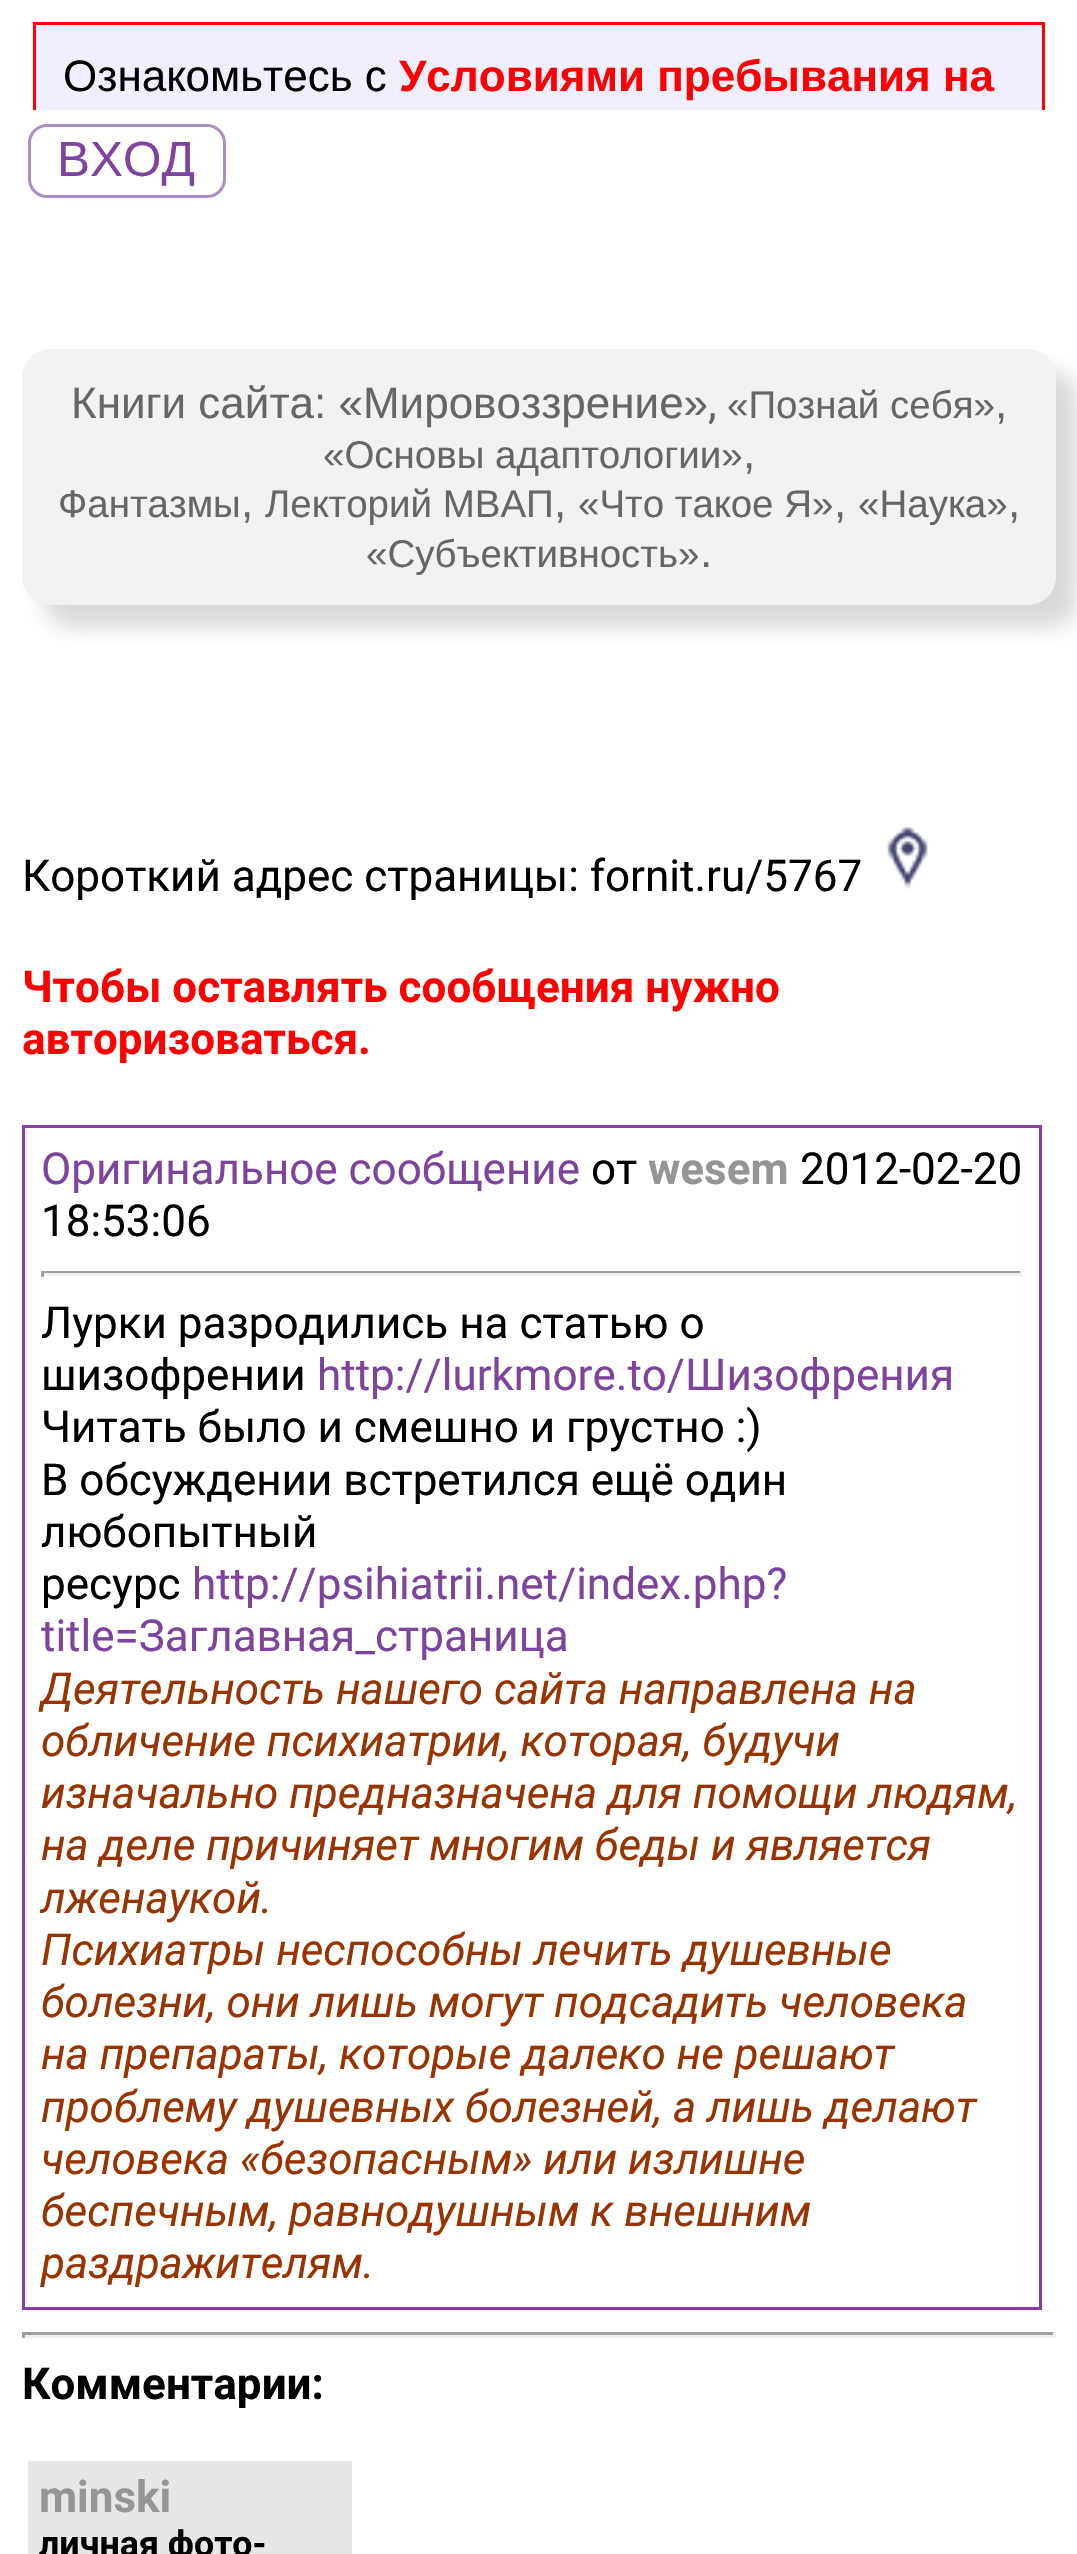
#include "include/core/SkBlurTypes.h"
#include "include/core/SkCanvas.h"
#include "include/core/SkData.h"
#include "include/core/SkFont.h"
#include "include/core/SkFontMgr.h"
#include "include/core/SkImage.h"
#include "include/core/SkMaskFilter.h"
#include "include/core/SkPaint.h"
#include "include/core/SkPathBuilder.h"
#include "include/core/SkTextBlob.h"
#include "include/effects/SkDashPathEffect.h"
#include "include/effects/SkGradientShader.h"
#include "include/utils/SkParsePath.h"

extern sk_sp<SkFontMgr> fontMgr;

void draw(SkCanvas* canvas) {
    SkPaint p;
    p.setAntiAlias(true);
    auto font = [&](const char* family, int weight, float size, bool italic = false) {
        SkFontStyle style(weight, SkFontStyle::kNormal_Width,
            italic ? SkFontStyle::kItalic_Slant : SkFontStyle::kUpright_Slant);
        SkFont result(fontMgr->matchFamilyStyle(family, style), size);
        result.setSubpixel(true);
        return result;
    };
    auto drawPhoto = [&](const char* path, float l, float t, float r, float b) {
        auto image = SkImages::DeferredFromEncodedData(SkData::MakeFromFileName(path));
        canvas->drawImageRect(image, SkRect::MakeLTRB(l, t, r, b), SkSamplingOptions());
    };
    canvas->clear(0xFFFFFFFF);
    p.setColor(0xFFEFEFFF);
    canvas->drawRect(SkRect::MakeLTRB(36, 25, 1042, 110), p);
    p.setStyle(SkPaint::kStroke_Style);
    p.setStrokeWidth(3);
    p.setColor(0xFFAA8FC2);
    canvas->drawRoundRect(SkRect::MakeLTRB(29.5f, 125.5f, 224.5f, 196.5f), 17.5f, 17.5f, p);
    canvas->save();
    canvas->clipRect(SkRect::MakeLTRB(33, 22, 1045, 110));
    p.setColor(0xFFFF0000);
    canvas->drawRect(SkRect::MakeLTRB(34.5f, 23.5f, 1043.5f, 325.5f), p);
    canvas->restore();
    auto font1 = font("Liberation Sans", 400, 44);
    p.setStyle(SkPaint::kFill_Style);
    p.setColor(0xFF000000);
    canvas->drawString("Ознакомьтесь с", 63, 91, font1, p);
    auto font2 = font("Liberation Sans", 700, 44);
    p.setColor(0xFFFF0000);
    canvas->drawString("Условиями пребывания на", 399, 91, font2, p);
    auto font3 = font("Liberation Sans", 400, 49.5f);
    p.setColor(0xFF7D449D);
    canvas->drawString("ВХОД", 57, 176, font3, p);
    p.setColor(0x4D7A7A7A);
    p.setMaskFilter(SkMaskFilter::MakeBlur(kNormal_SkBlurStyle, 11));
    canvas->drawRoundRect(SkRect::MakeLTRB(44, 371, 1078, 627), 28, 28, p);
    p.setMaskFilter(nullptr);
    p.setColor(0xFFF2F2F2);
    canvas->drawRoundRect(SkRect::MakeLTRB(22, 349, 1056, 605), 28, 28, p);
    p.setColor(0xFF666666);
    canvas->drawString("Книги сайта: «Мировоззрение»", 71, 418, font1, p);
    auto font4 = font("Roboto", 400, 44);
    canvas->drawString(",", 708, 418, font4, p);
    auto font5 = font("Liberation Sans", 400, 38.5f);
    canvas->drawString("«Познай себя»", 727, 418, font5, p);
    canvas->drawString(",", 995, 418, font1, p);
    canvas->drawString("«Основы адаптологии»", 323, 468, font5, p);
    canvas->drawString(",", 743, 468, font1, p);
    canvas->drawString("Фантазмы", 58, 517, font5, p);
    canvas->drawString(",", 241, 517, font1, p);
    canvas->drawString("Лекторий МВАП", 265, 517, font5, p);
    canvas->drawString(",", 554, 517, font1, p);
    canvas->drawString("«Что такое Я»", 578, 517, font5, p);
    canvas->drawString(",", 834, 517, font1, p);
    canvas->drawString("«Наука»", 858, 517, font5, p);
    canvas->drawString(",", 1008, 517, font1, p);
    canvas->drawString("«Субъективность»", 366, 567, font5, p);
    canvas->drawString(".", 700, 567, font1, p);
    p.setColor(0xFF000000);
    canvas->drawString("Короткий адрес страницы: fornit.ru/5767", 22, 891, font4, p);
    drawPhoto("media/1.png", 887, 827, 928, 889);
    auto font6 = font("Roboto", 700, 44);
    p.setColor(0xFFFF0000);
    canvas->drawString("Чтобы оставлять сообщения нужно", 22, 1002, font6, p);
    canvas->drawString("авторизоваться.", 22, 1054, font6, p);
    p.setStyle(SkPaint::kStroke_Style);
    p.setColor(0xFF8A3CA4);
    canvas->drawRect(SkRect::MakeLTRB(23.5f, 1126.5f, 1040.5f, 2308.5f), p);
    p.setStyle(SkPaint::kFill_Style);
    p.setColor(0xFF7D449D);
    canvas->drawString("Оригинальное сообщение", 41, 1184, font4, p);
    p.setColor(0xFF000000);
    canvas->drawString("от", 591, 1184, font4, p);
    p.setColor(0xFF959595);
    canvas->drawString("wesem", 648, 1184, font6, p);
    p.setColor(0xFF000000);
    canvas->drawString("2012-02-20", 800, 1184, font4, p);
    canvas->drawString("18:53:06", 41, 1236, font4, p);
    {
        const struct { float l, t, r, b; SkColor color; } items[] = {
            {41, 1271, 1023, 1273, 0xFF9F9F9F},
            {1020, 1271, 1023, 1277, 0xFFEEEEEE},
            {41, 1273, 1023, 1276, 0xFFEEEEEE},
            {41, 1271, 44, 1277, 0xFF9F9F9F},
        };
        for (auto [l, t, r, b, color] : items) {
            p.setColor(color);
            canvas->drawRect(SkRect::MakeLTRB(l, t, r, b), p);
        }
    }
    p.setColor(0xFF000000);
    canvas->drawString("Лурки разродились на статью о", 41, 1338, font4, p);
    canvas->drawString("шизофрении", 41, 1390, font4, p);
    p.setColor(0xFF7D449D);
    canvas->drawString("http://lurkmore.to/Шизофрения", 317, 1390, font4, p);
    p.setColor(0xFF000000);
    {
        const struct { const char* s; float x, y; } items[] = {
            {"Читать было и смешно и грустно :)", 41, 1442},
            {"В обсуждении встретился ещё один", 41, 1495},
            {"любопытный", 41, 1547},
            {"ресурс", 41, 1599},
        };
        for (auto [s, x, y] : items) {
            canvas->drawString(s, x, y, font4, p);
        }
    }
    p.setColor(0xFF7D449D);
    canvas->drawString("http://psihiatrii.net/index.php?", 192, 1599, font4, p);
    canvas->drawString("title=Заглавная_страница", 41, 1651, font4, p);
    auto font7 = font("Roboto", 400, 44, true);
    p.setColor(0xFF993300);
    {
        const struct { const char* s; float x, y; } items[] = {
            {"Деятельность нашего сайта направлена на", 41, 1704},
            {"обличение психиатрии, которая, будучи", 41, 1756},
            {"изначально предназначена для помощи людям,", 41, 1808},
            {"на деле причиняет многим беды и является", 41, 1860},
            {"лженаукой.", 41, 1913},
            {"Психиатры неспособны лечить душевные", 41, 1965},
            {"болезни, они лишь могут подсадить человека", 41, 2017},
            {"на препараты, которые далеко не решают", 41, 2069},
            {"проблему душевных болезней, а лишь делают", 41, 2122},
            {"человека «безопасным» или излишне", 41, 2174},
            {"беспечным, равнодушным к внешним", 41, 2226},
            {"раздражителям.", 41, 2278},
        };
        for (auto [s, x, y] : items) {
            canvas->drawString(s, x, y, font7, p);
        }
    }
    {
        const struct { float l, t, r, b; SkColor color; } items[] = {
            {22, 2332, 1056, 2335, 0xFF9F9F9F},
            {1053, 2332, 1056, 2338, 0xFFEEEEEE},
            {22, 2335, 1056, 2338, 0xFFEEEEEE},
            {22, 2332, 25, 2338, 0xFF9F9F9F},
        };
        for (auto [l, t, r, b, color] : items) {
            p.setColor(color);
            canvas->drawRect(SkRect::MakeLTRB(l, t, r, b), p);
        }
    }
    p.setColor(0xFF000000);
    canvas->drawString("Комментарии:", 22, 2399, font6, p);
    p.setColor(0xFFE7E7E7);
    canvas->drawRect(SkRect::MakeLTRB(28, 2461, 352, 2554), p);
    p.setColor(0xFF959595);
    canvas->drawString("minski", 39, 2512, font6, p);
    auto font8 = font("Roboto", 700, 35.75f);
    p.setColor(0xFF000000);
    canvas->drawString("личная фото-", 39, 2556, font8, p);
}
